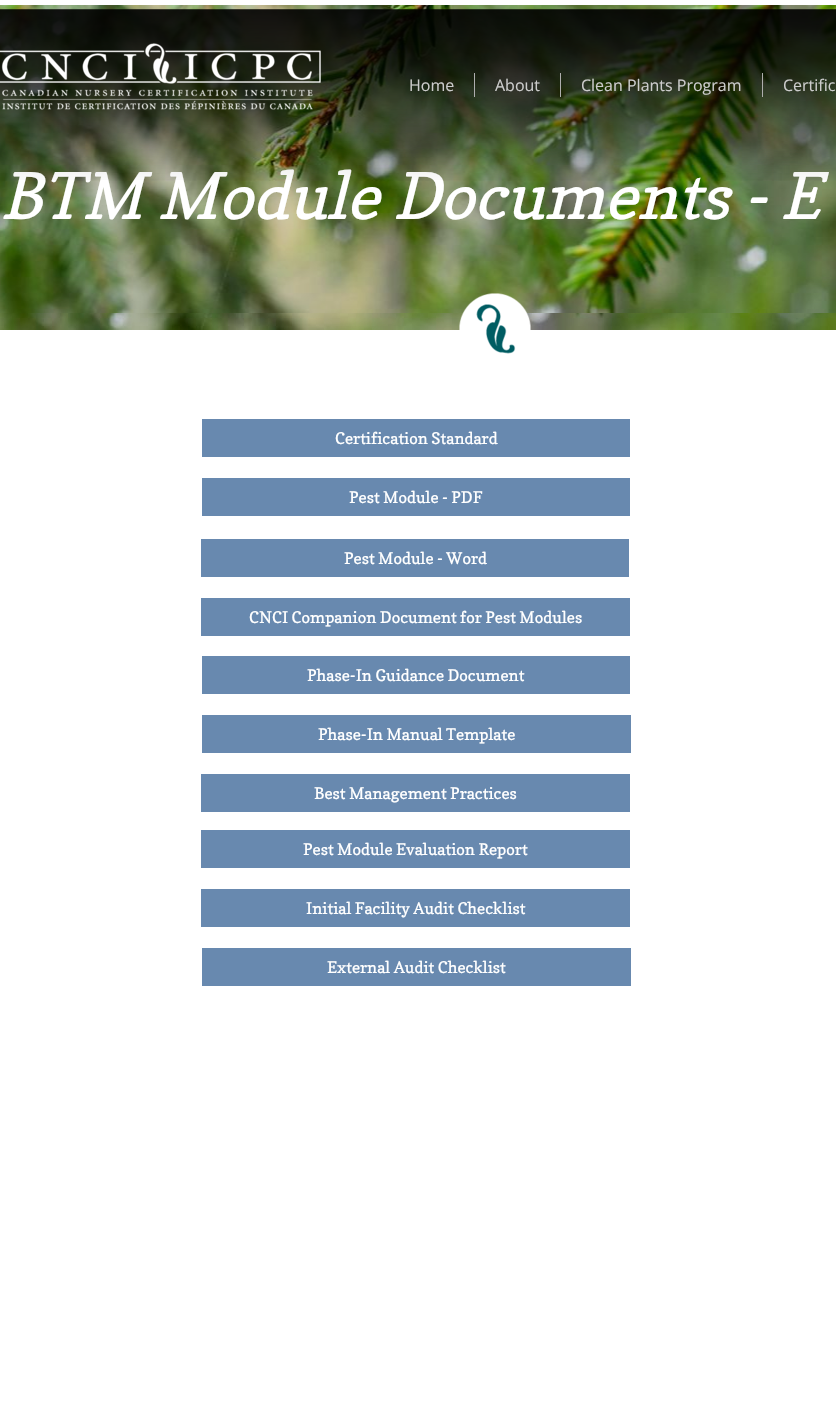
#include "include/core/SkBlurTypes.h"
#include "include/core/SkCanvas.h"
#include "include/core/SkData.h"
#include "include/core/SkFont.h"
#include "include/core/SkFontMgr.h"
#include "include/core/SkImage.h"
#include "include/core/SkMaskFilter.h"
#include "include/core/SkPaint.h"
#include "include/core/SkPathBuilder.h"
#include "include/core/SkTextBlob.h"
#include "include/effects/SkDashPathEffect.h"
#include "include/effects/SkGradientShader.h"
#include "include/utils/SkParsePath.h"

extern sk_sp<SkFontMgr> fontMgr;

void draw(SkCanvas* canvas) {
    SkPaint p;
    p.setAntiAlias(true);
    auto font = [&](const char* family, int weight, float size, bool italic = false) {
        SkFontStyle style(weight, SkFontStyle::kNormal_Width,
            italic ? SkFontStyle::kItalic_Slant : SkFontStyle::kUpright_Slant);
        SkFont result(fontMgr->matchFamilyStyle(family, style), size);
        result.setSubpixel(true);
        return result;
    };
    auto drawPhoto = [&](const char* path, float l, float t, float r, float b) {
        auto image = SkImages::DeferredFromEncodedData(SkData::MakeFromFileName(path));
        canvas->drawImageRect(image, SkRect::MakeLTRB(l, t, r, b), SkSamplingOptions());
    };
    canvas->clear(0xFFFFFFFF);
    drawPhoto("media/1.png", 0, 5, 836, 313);
    drawPhoto("media/3.png", 0, 10, 836, 181);
    auto font1 = font("Copse", 400, 64, true);
    p.setColor(0xFFFFFFFF);
    canvas->drawString("BTM Module Documents - E", 0, 219, font1, p);
    drawPhoto("media/2.png", 0, 9, 836, 180);
    drawPhoto("media/4.png", 0, 43, 321, 110);
    p.setColor(0xFFAEAEAE);
    canvas->drawRect(SkRect::MakeLTRB(474, 73, 475, 97), p);
    auto font2 = font("Open Sans", 400, 16);
    p.setColor(0xFFCCCCCC);
    canvas->drawString("Home", 409, 91, font2, p);
    p.setColor(0xFFAEAEAE);
    canvas->drawRect(SkRect::MakeLTRB(560, 73, 561, 97), p);
    p.setColor(0xFFCCCCCC);
    canvas->drawString("About", 495, 91, font2, p);
    p.setColor(0xFFAEAEAE);
    canvas->drawRect(SkRect::MakeLTRB(762, 73, 763, 97), p);
    p.setColor(0xFFCCCCCC);
    canvas->drawString("Clean Plants Program", 581, 91, font2, p);
    canvas->drawString("Certific", 783, 91, font2, p);
    drawPhoto("media/6.png", 0, 313, 836, 330);
    drawPhoto("media/5.png", 459, 293, 531, 354);
    p.setColor(0xFF6889AF);
    canvas->drawRect(SkRect::MakeLTRB(202, 419, 630, 457), p);
    auto font3 = font("Copse", 400, 16);
    p.setColor(0xFFFFFFFF);
    canvas->drawString("Certification Standard", 335, 444, font3, p);
    p.setColor(0xFF6889AF);
    canvas->drawRect(SkRect::MakeLTRB(202, 478, 630, 516), p);
    p.setColor(0xFFFFFFFF);
    canvas->drawString("Pest Module - PDF", 349, 503, font3, p);
    p.setColor(0xFF6889AF);
    canvas->drawRect(SkRect::MakeLTRB(201, 539, 629, 577), p);
    p.setColor(0xFFFFFFFF);
    canvas->drawString("Pest Module - Word", 344, 564, font3, p);
    p.setColor(0xFF6889AF);
    canvas->drawRect(SkRect::MakeLTRB(201, 598, 630, 636), p);
    p.setColor(0xFFFFFFFF);
    canvas->drawString("CNCI Companion Document for Pest Modules", 249, 623, font3, p);
    p.setColor(0xFF6889AF);
    canvas->drawRect(SkRect::MakeLTRB(202, 656, 630, 694), p);
    p.setColor(0xFFFFFFFF);
    canvas->drawString("Phase-In Guidance Document", 307, 681, font3, p);
    p.setColor(0xFF6889AF);
    canvas->drawRect(SkRect::MakeLTRB(202, 715, 631, 753), p);
    p.setColor(0xFFFFFFFF);
    canvas->drawString("Phase-In Manual Template", 318, 740, font3, p);
    p.setColor(0xFF6889AF);
    canvas->drawRect(SkRect::MakeLTRB(201, 774, 630, 812), p);
    p.setColor(0xFFFFFFFF);
    canvas->drawString("Best Management Practices", 314, 799, font3, p);
    p.setColor(0xFF6889AF);
    canvas->drawRect(SkRect::MakeLTRB(201, 830, 630, 868), p);
    p.setColor(0xFFFFFFFF);
    canvas->drawString("Pest Module Evaluation Report", 303, 855, font3, p);
    p.setColor(0xFF6889AF);
    canvas->drawRect(SkRect::MakeLTRB(201, 889, 630, 927), p);
    p.setColor(0xFFFFFFFF);
    canvas->drawString("Initial Facility Audit Checklist", 306, 914, font3, p);
    p.setColor(0xFF6889AF);
    canvas->drawRect(SkRect::MakeLTRB(202, 948, 631, 986), p);
    p.setColor(0xFFFFFFFF);
    canvas->drawString("External Audit Checklist", 327, 973, font3, p);
}
